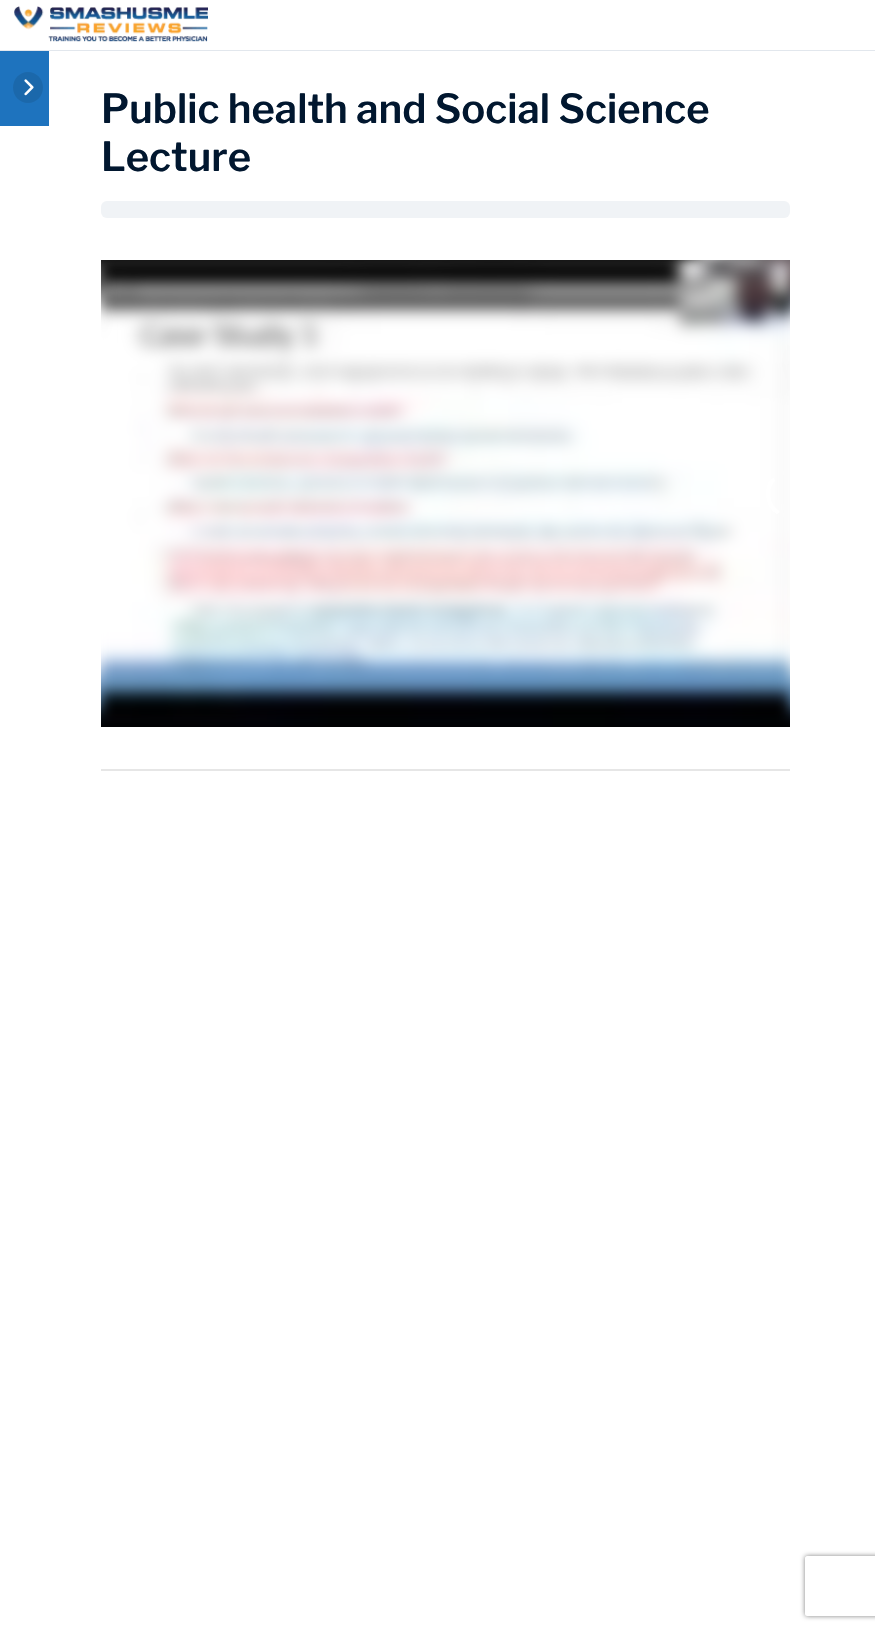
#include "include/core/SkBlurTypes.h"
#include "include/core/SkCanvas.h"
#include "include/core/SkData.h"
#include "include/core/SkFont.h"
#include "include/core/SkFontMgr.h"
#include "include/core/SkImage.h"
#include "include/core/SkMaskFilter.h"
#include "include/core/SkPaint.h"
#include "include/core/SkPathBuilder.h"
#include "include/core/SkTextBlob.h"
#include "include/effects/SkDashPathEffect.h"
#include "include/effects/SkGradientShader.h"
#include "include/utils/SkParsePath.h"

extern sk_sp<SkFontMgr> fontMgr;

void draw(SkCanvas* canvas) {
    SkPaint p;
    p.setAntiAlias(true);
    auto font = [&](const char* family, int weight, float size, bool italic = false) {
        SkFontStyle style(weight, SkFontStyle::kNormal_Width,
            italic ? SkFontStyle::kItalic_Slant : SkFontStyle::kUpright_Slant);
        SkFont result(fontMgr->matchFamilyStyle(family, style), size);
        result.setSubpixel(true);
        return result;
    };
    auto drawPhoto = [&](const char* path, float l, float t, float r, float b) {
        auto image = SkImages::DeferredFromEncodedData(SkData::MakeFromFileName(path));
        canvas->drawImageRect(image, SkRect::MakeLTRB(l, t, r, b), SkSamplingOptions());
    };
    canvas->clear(0xFFFFFFFF);
    p.setColor(0xFF1E73BE);
    canvas->drawRect(SkRect::MakeLTRB(0, 51, 49, 126), p);
    p.setColor(0xFF1B68AB);
    canvas->drawPath(SkPathBuilder().moveTo(28, 103).cubicTo(19.5f, 103, 13, 96, 13, 87.5f).cubicTo(13, 79, 19.5f, 72, 28, 72).cubicTo(36.5f, 72, 43, 79, 43, 87.5f).cubicTo(43, 96, 36.5f, 103, 28, 103).close().detach(), p);
    drawPhoto("media/1.png", 24, 79, 34, 96);
    p.setColor(0xFFE2E7ED);
    canvas->drawRect(SkRect::MakeLTRB(0, 50, 875, 51), p);
    drawPhoto("media/2.png", 14, 6, 208, 42);
    auto font1 = font("Libre Franklin", 600, 40);
    p.setColor(0xFF01172F);
    canvas->drawString("Public health and Social Science", 101, 123, font1, p);
    canvas->drawString("Lecture", 101, 171, font1, p);
    p.setColor(0xFFF0F3F6);
    canvas->drawRoundRect(SkRect::MakeLTRB(101, 201, 790, 218), 6, 6, p);
    drawPhoto("media/3.png", 101, 260, 790, 727);
    p.setColor(0xFFE6E6E6);
    canvas->drawRect(SkRect::MakeLTRB(101, 769, 790, 771), p);
    canvas->save();
    canvas->clipPath(SkPathBuilder(SkPathFillType::kEvenOdd).moveTo(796, 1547).lineTo(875, 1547).lineTo(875, 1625).lineTo(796, 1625).close().moveTo(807, 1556).lineTo(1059, 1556).cubicTo(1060, 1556, 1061, 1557, 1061, 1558).lineTo(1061, 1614).cubicTo(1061, 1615, 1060, 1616, 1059, 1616).lineTo(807, 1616).cubicTo(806, 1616, 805, 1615, 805, 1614).lineTo(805, 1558).cubicTo(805, 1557, 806, 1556, 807, 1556).close().detach(), true);
    p.setColor(0xFF808080);
    p.setMaskFilter(SkMaskFilter::MakeBlur(kNormal_SkBlurStyle, 2.5f));
    canvas->drawRoundRect(SkRect::MakeLTRB(805, 1556, 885, 1616), 2, 2, p);
    p.setMaskFilter(nullptr);
    canvas->restore();
}
